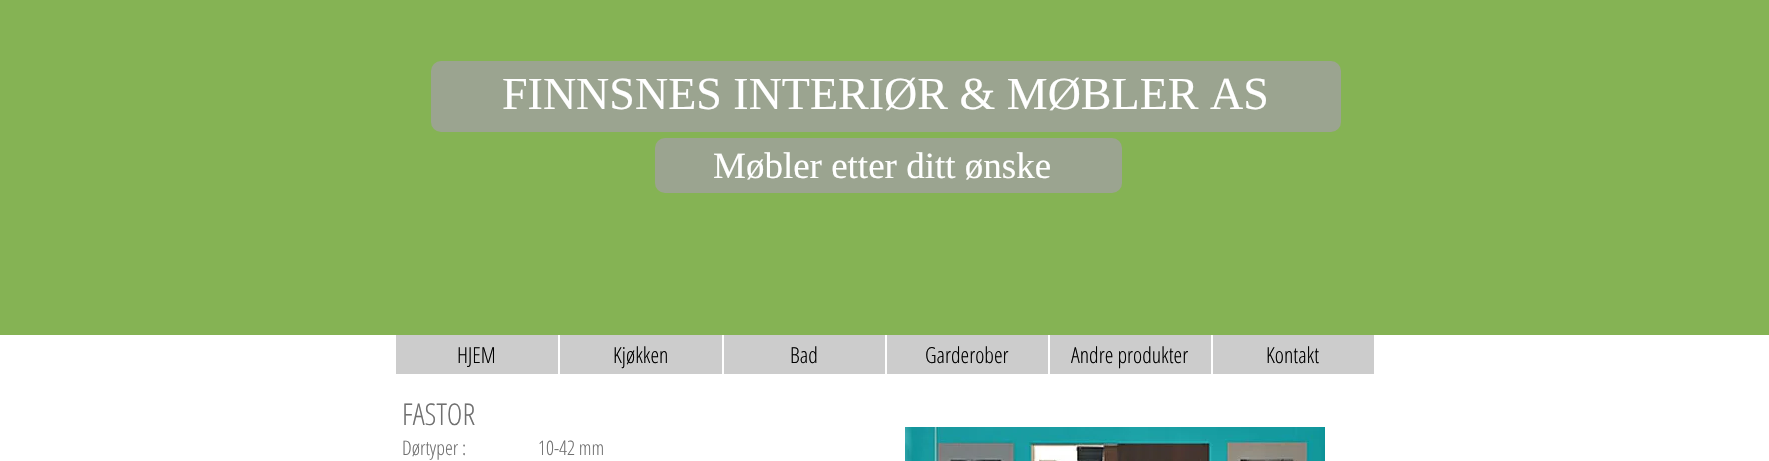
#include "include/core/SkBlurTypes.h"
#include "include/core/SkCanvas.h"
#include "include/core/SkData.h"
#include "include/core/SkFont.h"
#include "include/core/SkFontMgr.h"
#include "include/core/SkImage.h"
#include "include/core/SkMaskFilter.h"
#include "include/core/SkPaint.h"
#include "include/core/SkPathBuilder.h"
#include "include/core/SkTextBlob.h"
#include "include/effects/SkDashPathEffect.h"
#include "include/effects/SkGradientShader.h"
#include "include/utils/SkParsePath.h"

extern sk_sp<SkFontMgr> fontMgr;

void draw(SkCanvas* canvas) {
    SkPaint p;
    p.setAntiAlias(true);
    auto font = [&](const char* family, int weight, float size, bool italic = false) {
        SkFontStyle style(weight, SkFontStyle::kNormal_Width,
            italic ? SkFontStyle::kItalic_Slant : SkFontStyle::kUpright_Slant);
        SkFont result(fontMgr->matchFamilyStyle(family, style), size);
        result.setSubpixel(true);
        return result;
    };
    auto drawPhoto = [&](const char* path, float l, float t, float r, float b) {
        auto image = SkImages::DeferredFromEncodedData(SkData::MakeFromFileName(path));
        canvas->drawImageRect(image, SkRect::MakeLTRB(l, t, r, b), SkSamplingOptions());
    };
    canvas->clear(0xFFFFFFFF);
    p.setColor(0xFF85B354);
    canvas->drawRect(SkRect::MakeLTRB(0, 0, 1769, 335), p);
    p.setColor(0xFF9BA490);
    canvas->drawRoundRect(SkRect::MakeLTRB(431, 61, 1341, 132), 10, 10, p);
    auto font1 = font("Liberation Serif", 400, 46);
    p.setColor(0xFFFFFFFF);
    canvas->drawString("FINNSNES INTERIØR & MØBLER AS", 502, 109, font1, p);
    p.setColor(0xFF9BA490);
    canvas->drawRoundRect(SkRect::MakeLTRB(655, 138, 1122, 193), 10, 10, p);
    auto font2 = font("Liberation Serif", 400, 37);
    p.setColor(0xFFFFFFFF);
    canvas->drawString("Møbler etter ditt ønske", 713, 178, font2, p);
    p.setColor(0xFFCCCCCC);
    canvas->drawRect(SkRect::MakeLTRB(396, 335, 558, 374), p);
    auto font3 = font("Open Sans Condensed", 300, 22);
    p.setColor(0xFF000000);
    canvas->drawString("HJEM", 457, 363, font3, p);
    p.setColor(0xFFCCCCCC);
    canvas->drawRect(SkRect::MakeLTRB(560, 335, 722, 374), p);
    p.setColor(0xFF000000);
    canvas->drawString("Kjøkken", 613, 363, font3, p);
    p.setColor(0xFFCCCCCC);
    canvas->drawRect(SkRect::MakeLTRB(724, 335, 885, 374), p);
    p.setColor(0xFF000000);
    canvas->drawString("Bad", 790, 363, font3, p);
    p.setColor(0xFFCCCCCC);
    canvas->drawRect(SkRect::MakeLTRB(887, 335, 1048, 374), p);
    p.setColor(0xFF000000);
    canvas->drawString("Garderober", 925, 363, font3, p);
    p.setColor(0xFFCCCCCC);
    canvas->drawRect(SkRect::MakeLTRB(1050, 335, 1211, 374), p);
    p.setColor(0xFF000000);
    canvas->drawString("Andre produkter", 1071, 363, font3, p);
    p.setColor(0xFFCCCCCC);
    canvas->drawRect(SkRect::MakeLTRB(1213, 335, 1374, 374), p);
    p.setColor(0xFF000000);
    canvas->drawString("Kontakt", 1266, 363, font3, p);
    auto font4 = font("Open Sans Condensed", 300, 30);
    p.setColor(0xFF707070);
    canvas->drawString("FASTOR", 402, 425, font4, p);
    auto font5 = font("Open Sans Condensed", 300, 20);
    canvas->drawString("Dørtyper :", 402, 455, font5, p);
    canvas->drawString("10-42 mm", 538, 455, font5, p);
    drawPhoto("media/1.png", 905, 427, 1325, 461);
}
